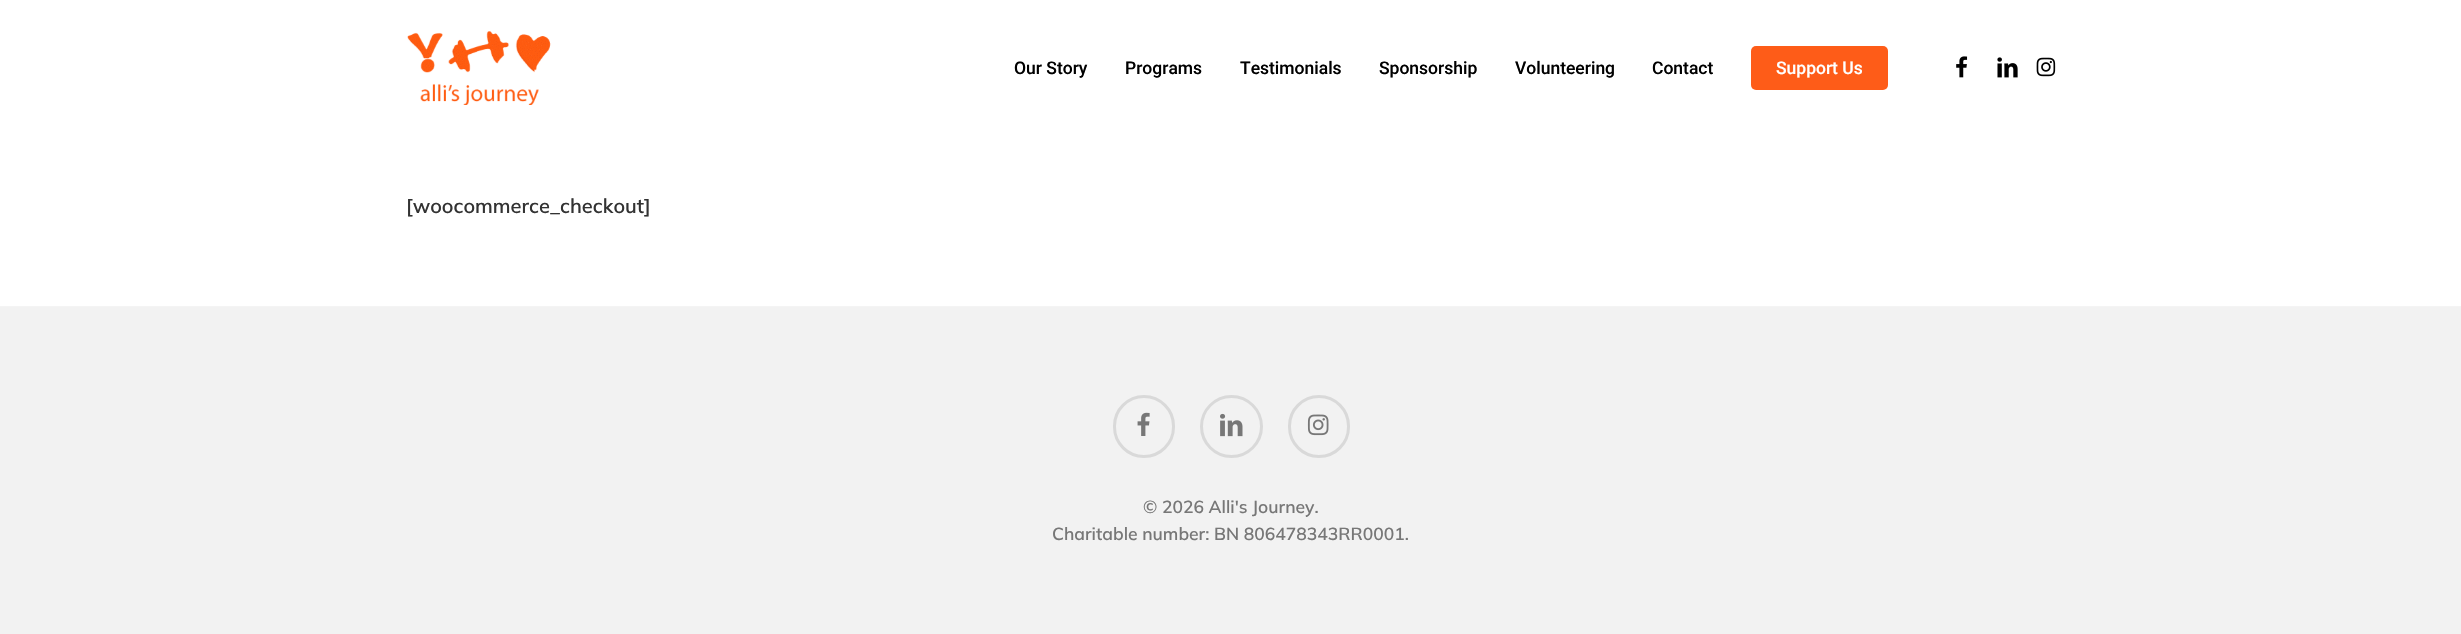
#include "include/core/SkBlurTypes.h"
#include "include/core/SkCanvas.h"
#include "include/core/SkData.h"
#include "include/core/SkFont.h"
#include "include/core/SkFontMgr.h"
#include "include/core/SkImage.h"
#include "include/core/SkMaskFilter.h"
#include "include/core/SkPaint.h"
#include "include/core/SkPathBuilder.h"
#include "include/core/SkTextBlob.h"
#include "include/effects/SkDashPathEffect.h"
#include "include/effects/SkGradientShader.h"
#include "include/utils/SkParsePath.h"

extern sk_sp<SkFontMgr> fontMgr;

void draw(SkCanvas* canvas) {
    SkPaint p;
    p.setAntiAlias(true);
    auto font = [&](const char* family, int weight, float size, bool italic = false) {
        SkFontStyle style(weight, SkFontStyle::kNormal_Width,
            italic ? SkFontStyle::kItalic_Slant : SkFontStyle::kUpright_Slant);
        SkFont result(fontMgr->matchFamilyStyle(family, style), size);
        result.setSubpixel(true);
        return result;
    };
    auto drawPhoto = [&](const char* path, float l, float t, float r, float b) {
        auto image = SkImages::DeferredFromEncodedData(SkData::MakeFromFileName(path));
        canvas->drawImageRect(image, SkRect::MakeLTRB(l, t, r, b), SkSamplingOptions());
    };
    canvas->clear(0xFFFFFFFF);
    drawPhoto("media/1.png", 407, 31, 551, 105);
    auto font1 = font("Roboto", 500, 17.5f);
    p.setColor(0xFF000000);
    {
        const struct { const char* s; float x, y; } items[] = {
            {"Our Story", 1014, 74},
            {"Programs", 1125, 74},
            {"Testimonials", 1240, 74},
            {"Sponsorship", 1379, 74},
            {"Volunteering", 1515, 74},
            {"Contact", 1652, 74},
        };
        for (auto [s, x, y] : items) {
            canvas->drawString(s, x, y, font1, p);
        }
    }
    p.setColor(0xFFFE5C18);
    canvas->drawRoundRect(SkRect::MakeLTRB(1751, 46, 1888, 90), 5, 5, p);
    p.setColor(0xFFFFFFFF);
    canvas->drawString("Support Us", 1776, 74, font1, p);
    drawPhoto("media/2.png", 1956, 56, 1968, 78);
    drawPhoto("media/3.png", 1997, 57, 2018, 78);
    drawPhoto("media/4.png", 2036, 57, 2056, 77);
    auto font2 = font("Mulish", 200, 20);
    p.setColor(0xFF333333);
    canvas->drawString("[woocommerce_checkout]", 406, 213, font2, p);
    p.setColor(0xFFF2F2F2);
    canvas->drawRect(SkRect::MakeLTRB(0, 307, 2461, 634), p);
    p.setColor(0xFFF4F4F4);
    canvas->drawRect(SkRect::MakeLTRB(0, 306, 2461, 307), p);
    drawPhoto("media/5.png", 1137, 412, 1150, 436);
    p.setStyle(SkPaint::kStroke_Style);
    p.setStrokeWidth(3);
    p.setColor(0xFFD9D9D9);
    canvas->drawRoundRect(SkRect::MakeLTRB(1114.5f, 396.5f, 1173.5f, 456.5f), 29.5f, 29.5f, p);
    drawPhoto("media/6.png", 1220, 413, 1243, 437);
    canvas->drawCircle(1231.5f, 426.5f, 30, p);
    drawPhoto("media/7.png", 1307, 414, 1329, 436);
    canvas->drawRoundRect(SkRect::MakeLTRB(1289.5f, 396.5f, 1348.5f, 456.5f), 29.5f, 29.5f, p);
    auto font3 = font("Mulish", 200, 17.5f);
    p.setStyle(SkPaint::kFill_Style);
    p.setColor(0xFF777777);
    canvas->drawString("© 2026 Alli's Journey.", 1143, 513, font3, p);
    canvas->drawString("Charitable number: BN 806478343RR0001.", 1052, 540, font3, p);
}
